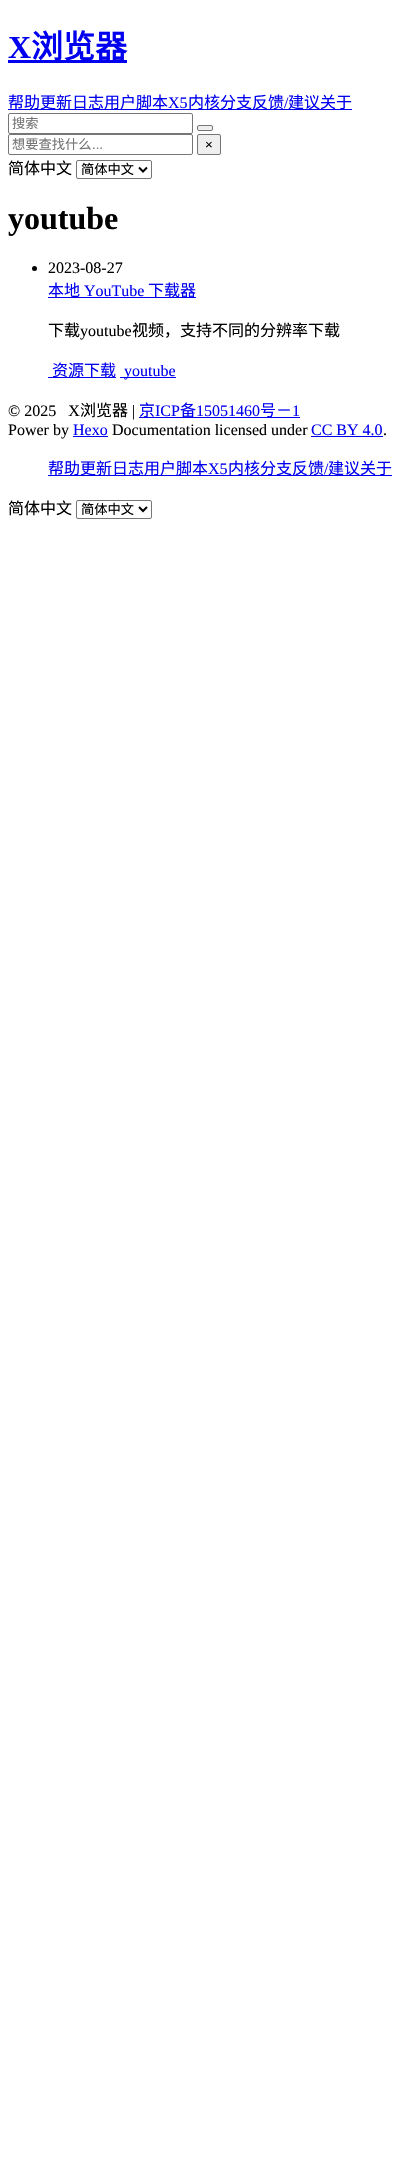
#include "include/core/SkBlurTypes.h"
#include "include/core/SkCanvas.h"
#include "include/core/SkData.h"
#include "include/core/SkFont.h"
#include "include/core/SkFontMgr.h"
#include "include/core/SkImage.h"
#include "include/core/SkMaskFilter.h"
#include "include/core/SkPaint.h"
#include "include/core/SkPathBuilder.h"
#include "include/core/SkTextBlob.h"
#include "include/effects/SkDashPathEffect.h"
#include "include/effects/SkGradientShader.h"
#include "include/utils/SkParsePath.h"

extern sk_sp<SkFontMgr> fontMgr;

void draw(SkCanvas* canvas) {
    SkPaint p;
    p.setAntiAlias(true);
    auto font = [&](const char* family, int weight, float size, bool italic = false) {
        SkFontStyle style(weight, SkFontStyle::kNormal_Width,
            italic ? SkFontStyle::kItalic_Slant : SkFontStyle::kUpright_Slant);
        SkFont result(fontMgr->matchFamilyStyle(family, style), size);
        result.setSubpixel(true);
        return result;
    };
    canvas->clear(0xFFFFFFFF);
    auto font1 = font("Liberation Serif", 700, 32);
    p.setColor(0xFF0000EE);
    canvas->drawString("X", 8, 58, font1, p);
    canvas->drawRect(SkRect::MakeLTRB(8, 60, 127, 63), p);
    auto font2 = font("Noto Sans CJK SC", 700, 32);
    canvas->drawString("浏览器", 31, 58, font2, p);
    canvas->drawRect(SkRect::MakeLTRB(8, 109, 352, 110), p);
    auto font3 = font("Noto Sans CJK SC", 400, 16);
    canvas->drawString("帮助更新日志用户脚本", 8, 108, font3, p);
    auto font4 = font("Liberation Serif", 400, 16);
    canvas->drawString("X5", 168, 108, font4, p);
    canvas->drawString("内核分支反馈", 188, 108, font3, p);
    canvas->drawString("/", 284, 108, font4, p);
    canvas->drawString("建议关于", 288, 108, font3, p);
    p.setStyle(SkPaint::kStroke_Style);
    p.setStrokeWidth(1);
    p.setColor(0xFF767676);
    canvas->drawRoundRect(SkRect::MakeLTRB(8.5f, 113.5f, 192.5f, 133.5f), 1.5f, 1.5f, p);
    auto font5 = font("Noto Sans CJK SC", 400, 13.25f);
    p.setStyle(SkPaint::kFill_Style);
    p.setColor(0xFF757575);
    canvas->drawString("搜索", 12, 128, font5, p);
    p.setColor(0xFFEFEFEF);
    canvas->drawRoundRect(SkRect::MakeLTRB(197.5f, 125.5f, 212.5f, 130.5f), 1.5f, 1.5f, p);
    p.setStyle(SkPaint::kStroke_Style);
    p.setColor(0xFF767676);
    canvas->drawRoundRect(SkRect::MakeLTRB(197.5f, 125.5f, 212.5f, 130.5f), 1.5f, 1.5f, p);
    canvas->drawRoundRect(SkRect::MakeLTRB(8.5f, 134.5f, 192.5f, 154.5f), 1.5f, 1.5f, p);
    p.setStyle(SkPaint::kFill_Style);
    p.setColor(0xFF757575);
    canvas->drawString("想要查找什么", 12, 149, font5, p);
    auto font6 = font("Liberation Sans", 400, 13.25f);
    canvas->drawString("...", 92, 149, font6, p);
    p.setColor(0xFFEFEFEF);
    canvas->drawRoundRect(SkRect::MakeLTRB(197.5f, 134.5f, 220.5f, 154.5f), 1.5f, 1.5f, p);
    p.setStyle(SkPaint::kStroke_Style);
    p.setColor(0xFF767676);
    canvas->drawRoundRect(SkRect::MakeLTRB(197.5f, 134.5f, 220.5f, 154.5f), 1.5f, 1.5f, p);
    p.setStyle(SkPaint::kFill_Style);
    p.setColor(0xFF000000);
    canvas->drawString("×", 205, 149, font6, p);
    canvas->drawString("简体中文", 8, 174, font3, p);
    p.setStyle(SkPaint::kStroke_Style);
    p.setColor(0xFF767676);
    canvas->drawRoundRect(SkRect::MakeLTRB(76.5f, 160.5f, 151.5f, 178.5f), 1.5f, 1.5f, p);
    p.setStrokeWidth(2);
    p.setColor(0xFF000000);
    canvas->drawPath(SkPathBuilder().moveTo(139, 167.5f).lineTo(143, 171.5f).lineTo(147, 167.5f).detach(), p);
    p.setStyle(SkPaint::kFill_Style);
    canvas->drawString("简体中文", 81, 174, font5, p);
    canvas->drawString("youtube", 8, 229, font1, p);
    canvas->drawCircle(34.5f, 268.5f, 2.5f, p);
    canvas->drawString("2023-08-27", 48, 273, font4, p);
    p.setColor(0xFF0000EE);
    canvas->drawRect(SkRect::MakeLTRB(48, 297, 196, 298), p);
    canvas->drawString("本地", 48, 296, font3, p);
    canvas->drawString("YouTube", 84, 296, font4, p);
    canvas->drawString("下载器", 148, 296, font3, p);
    p.setColor(0xFF000000);
    canvas->drawString("下载", 48, 336, font3, p);
    canvas->drawString("youtube", 80, 336, font4, p);
    canvas->drawString("视频，支持不同的分辨率下载", 132, 336, font3, p);
    p.setColor(0xFF0000EE);
    canvas->drawRect(SkRect::MakeLTRB(48, 377, 116, 378), p);
    canvas->drawString("资源下载", 52, 376, font3, p);
    canvas->drawRect(SkRect::MakeLTRB(120, 377, 176, 378), p);
    canvas->drawString("youtube", 124, 376, font4, p);
    p.setColor(0xFF000000);
    canvas->drawString("© 2025   X", 8, 416, font4, p);
    canvas->drawString("浏览器", 80, 416, font3, p);
    canvas->drawString("|", 132, 416, font4, p);
    p.setColor(0xFF0000EE);
    canvas->drawRect(SkRect::MakeLTRB(139, 417, 300, 418), p);
    canvas->drawString("京", 139, 416, font3, p);
    canvas->drawString("ICP", 155, 416, font4, p);
    canvas->drawString("备", 180, 416, font3, p);
    canvas->drawString("15051460", 196, 416, font4, p);
    canvas->drawString("号－", 260, 416, font3, p);
    canvas->drawString("1", 292, 416, font4, p);
    p.setColor(0xFF000000);
    canvas->drawString("Power by", 8, 435, font4, p);
    p.setColor(0xFF0000EE);
    canvas->drawString("Hexo", 73, 435, font4, p);
    canvas->drawRect(SkRect::MakeLTRB(73, 436, 108, 437), p);
    p.setColor(0xFF000000);
    canvas->drawString("Documentation licensed under", 112, 435, font4, p);
    p.setColor(0xFF0000EE);
    canvas->drawString("CC BY 4.0", 311, 435, font4, p);
    canvas->drawRect(SkRect::MakeLTRB(311, 436, 383, 437), p);
    p.setColor(0xFF000000);
    canvas->drawString(".", 383, 435, font4, p);
    p.setColor(0xFF0000EE);
    canvas->drawRect(SkRect::MakeLTRB(48, 475, 392, 476), p);
    canvas->drawString("帮助更新日志用户脚本", 48, 474, font3, p);
    canvas->drawString("X5", 208, 474, font4, p);
    canvas->drawString("内核分支反馈", 228, 474, font3, p);
    canvas->drawString("/", 324, 474, font4, p);
    canvas->drawString("建议关于", 328, 474, font3, p);
    p.setColor(0xFF000000);
    canvas->drawString("简体中文", 8, 514, font3, p);
    p.setStyle(SkPaint::kStroke_Style);
    p.setStrokeWidth(1);
    p.setColor(0xFF767676);
    canvas->drawRoundRect(SkRect::MakeLTRB(76.5f, 500.5f, 151.5f, 518.5f), 1.5f, 1.5f, p);
    p.setStrokeWidth(2);
    p.setColor(0xFF000000);
    canvas->drawPath(SkPathBuilder().moveTo(139, 507).lineTo(143, 511).lineTo(147, 507).detach(), p);
    p.setStyle(SkPaint::kFill_Style);
    canvas->drawString("简体中文", 81, 514, font5, p);
}
